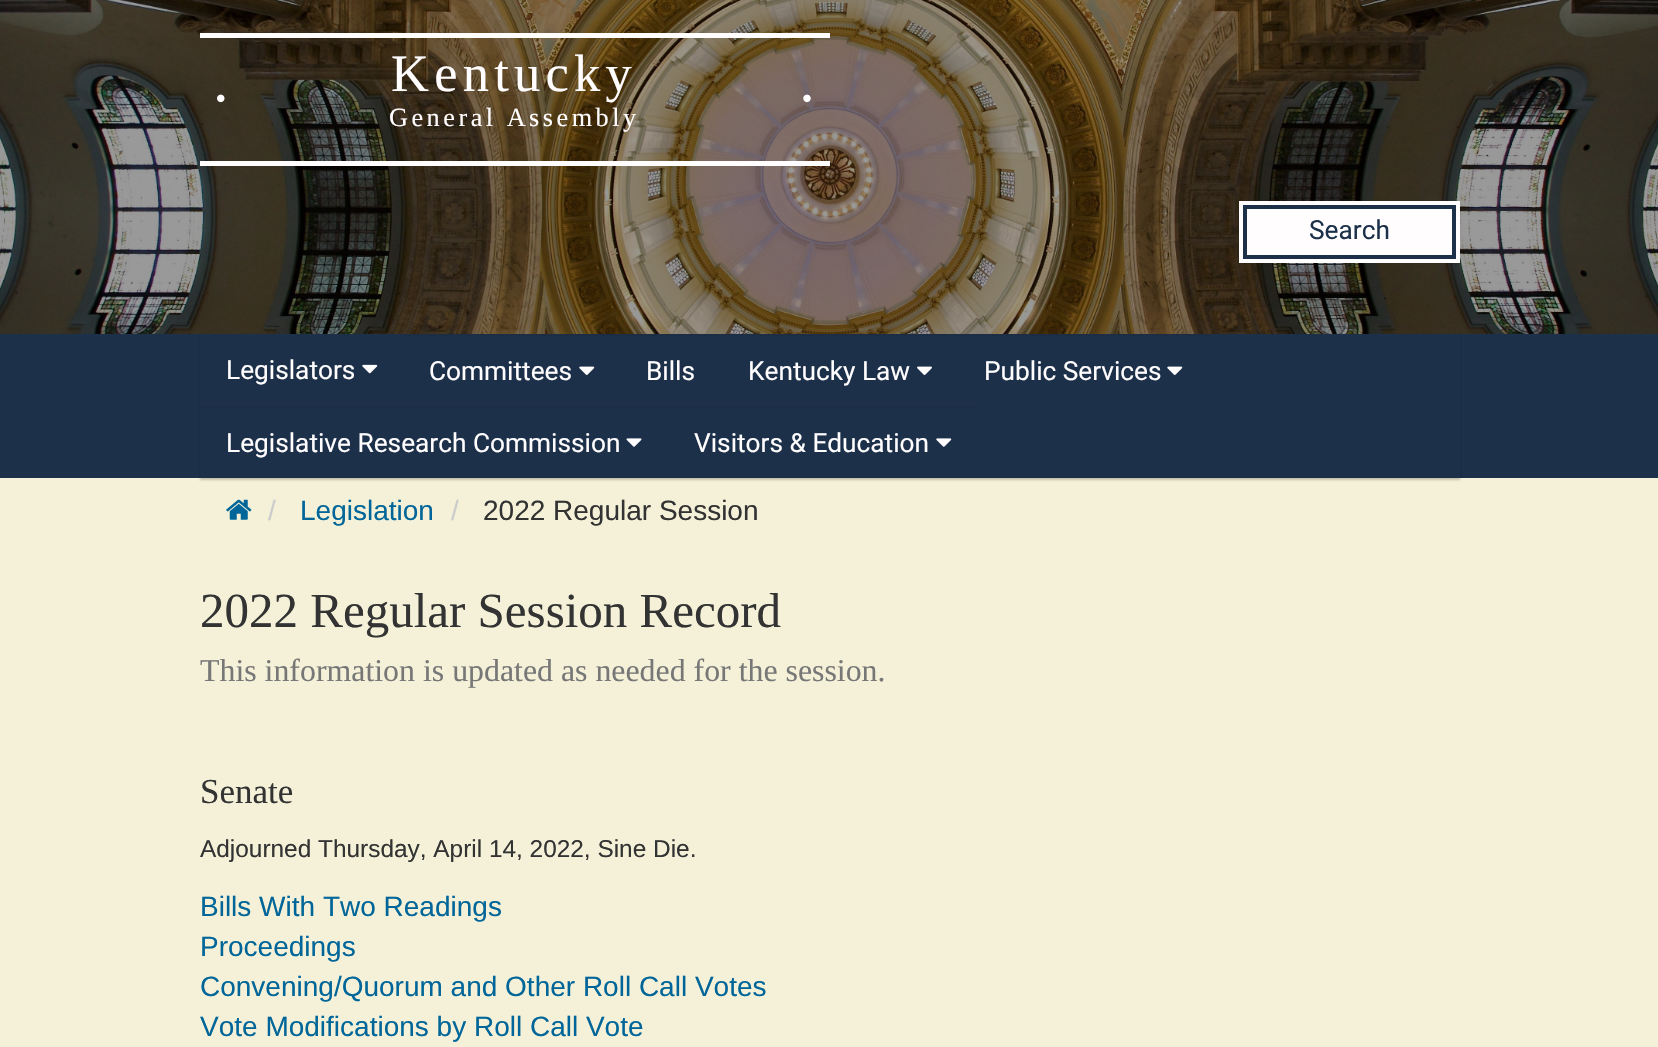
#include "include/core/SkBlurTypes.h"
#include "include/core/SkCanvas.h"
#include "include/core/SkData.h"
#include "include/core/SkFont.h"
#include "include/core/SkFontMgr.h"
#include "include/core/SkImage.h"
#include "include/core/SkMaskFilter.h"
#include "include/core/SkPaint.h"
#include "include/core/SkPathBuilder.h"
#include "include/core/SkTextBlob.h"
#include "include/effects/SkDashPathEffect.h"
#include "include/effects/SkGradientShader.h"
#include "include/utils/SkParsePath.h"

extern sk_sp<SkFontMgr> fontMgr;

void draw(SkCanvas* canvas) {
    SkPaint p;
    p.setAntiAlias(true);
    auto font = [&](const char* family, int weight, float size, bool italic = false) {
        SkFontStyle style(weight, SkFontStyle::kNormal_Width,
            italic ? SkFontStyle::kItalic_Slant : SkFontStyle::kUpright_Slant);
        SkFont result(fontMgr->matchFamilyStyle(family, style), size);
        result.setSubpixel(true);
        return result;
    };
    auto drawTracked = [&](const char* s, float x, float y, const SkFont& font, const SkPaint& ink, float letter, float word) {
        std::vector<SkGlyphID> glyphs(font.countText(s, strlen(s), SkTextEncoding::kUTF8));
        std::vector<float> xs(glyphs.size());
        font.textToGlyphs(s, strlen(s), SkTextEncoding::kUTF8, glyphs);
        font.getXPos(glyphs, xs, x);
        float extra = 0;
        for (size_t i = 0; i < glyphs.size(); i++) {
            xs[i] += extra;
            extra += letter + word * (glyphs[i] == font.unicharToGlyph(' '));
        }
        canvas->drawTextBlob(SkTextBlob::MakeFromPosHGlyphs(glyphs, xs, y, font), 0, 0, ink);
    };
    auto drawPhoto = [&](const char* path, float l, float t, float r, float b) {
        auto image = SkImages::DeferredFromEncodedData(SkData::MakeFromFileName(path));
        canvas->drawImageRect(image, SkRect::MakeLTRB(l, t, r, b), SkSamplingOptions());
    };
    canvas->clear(0xFFF4F1D8);
    drawPhoto("media/1.png", 0, 0, 1658, 334);
    p.setColor(0xFFFFFDFE);
    canvas->drawRect(SkRect::MakeLTRB(200, 33, 830, 38), p);
    canvas->drawRect(SkRect::MakeLTRB(200, 161, 830, 166), p);
    drawPhoto("media/2.png", 217, 94, 225, 103);
    auto font1 = font("Liberation Serif", 400, 52.5f);
    drawTracked("Kentucky", 391, 91, font1, p, 5.25f, 0);
    drawPhoto("media/3.png", 803, 94, 811, 103);
    auto font2 = font("Liberation Serif", 400, 26.25f);
    drawTracked("General Assembly", 389, 126, font2, p, 3.5f, 0);
    canvas->drawRect(SkRect::MakeLTRB(1239, 201, 1460, 263), p);
    p.setStyle(SkPaint::kStroke_Style);
    p.setStrokeWidth(4);
    p.setColor(0xFF1C304A);
    canvas->drawRect(SkRect::MakeLTRB(1245, 207, 1454, 257), p);
    auto font3 = font("Roboto", 400, 26.25f);
    p.setStyle(SkPaint::kFill_Style);
    canvas->drawString("Search", 1309, 239, font3, p);
    canvas->drawRect(SkRect::MakeLTRB(0, 334, 1658, 478), p);
    canvas->save();
    canvas->clipPath(SkPathBuilder(SkPathFillType::kEvenOdd).moveTo(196, 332).lineTo(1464, 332).lineTo(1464, 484).lineTo(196, 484).close().moveTo(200, 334).lineTo(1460, 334).lineTo(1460, 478).lineTo(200, 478).close().detach(), true);
    p.setColor(0x33000000);
    p.setMaskFilter(SkMaskFilter::MakeBlur(kNormal_SkBlurStyle, 1));
    canvas->drawRect(SkRect::MakeLTRB(200, 336, 1460, 480), p);
    p.setMaskFilter(nullptr);
    canvas->restore();
    p.setColor(0xFFFFFDFE);
    canvas->drawString("Legislators", 226, 379, font3, p);
    drawPhoto("media/4.png", 362, 364, 378, 374);
    p.setColor(0xFF1B2E46);
    canvas->drawRect(SkRect::MakeLTRB(403, 334, 1209, 336), p);
    p.setColor(0xFFFFFDFE);
    canvas->drawString("Committees", 429, 380, font3, p);
    drawPhoto("media/5.png", 579, 366, 595, 375);
    canvas->drawString("Bills", 646, 380, font3, p);
    canvas->drawString("Kentucky Law", 748, 380, font3, p);
    drawPhoto("media/6.png", 917, 366, 932, 375);
    canvas->drawString("Public Services", 984, 380, font3, p);
    drawPhoto("media/5.png", 1167, 366, 1183, 375);
    p.setColor(0xFF1B2E46);
    canvas->drawRect(SkRect::MakeLTRB(200, 406, 977, 408), p);
    p.setColor(0xFFFFFDFE);
    canvas->drawString("Legislative Research Commission", 226, 452, font3, p);
    drawPhoto("media/7.png", 626, 438, 642, 447);
    canvas->drawString("Visitors & Education", 694, 452, font3, p);
    drawPhoto("media/8.png", 936, 438, 952, 447);
    drawPhoto("media/9.png", 226, 499, 252, 520);
    auto font4 = font("Liberation Sans", 400, 28);
    p.setColor(0xFFCCCCCC);
    canvas->drawString("/", 268, 520, font4, p);
    p.setColor(0xFF006699);
    canvas->drawString("Legislation", 300, 520, font4, p);
    p.setColor(0xFFCCCCCC);
    canvas->drawString("/", 451, 520, font4, p);
    p.setColor(0xFF333333);
    canvas->drawString("2022 Regular Session", 483, 520, font4, p);
    auto font5 = font("Liberation Serif", 400, 49);
    canvas->drawString("2022 Regular Session Record", 200, 627, font5, p);
    auto font6 = font("Liberation Serif", 400, 31.85f);
    p.setColor(0xFF777777);
    canvas->drawString("This information is updated as needed for the session.", 200, 681, font6, p);
    auto font7 = font("Liberation Serif", 400, 35);
    p.setColor(0xFF333333);
    canvas->drawString("Senate", 200, 803, font7, p);
    auto font8 = font("Liberation Sans", 400, 24.4f);
    canvas->drawString("Adjourned Thursday, April 14, 2022, Sine Die.", 200, 857, font8, p);
    p.setColor(0xFF006699);
    {
        const struct { const char* s; float x, y; } items[] = {
            {"Bills With Two Readings", 200, 916},
            {"Proceedings", 200, 956},
            {"Convening/Quorum and Other Roll Call Votes", 200, 996},
            {"Vote Modifications by Roll Call Vote", 200, 1036},
        };
        for (auto [s, x, y] : items) {
            canvas->drawString(s, x, y, font4, p);
        }
    }
}
